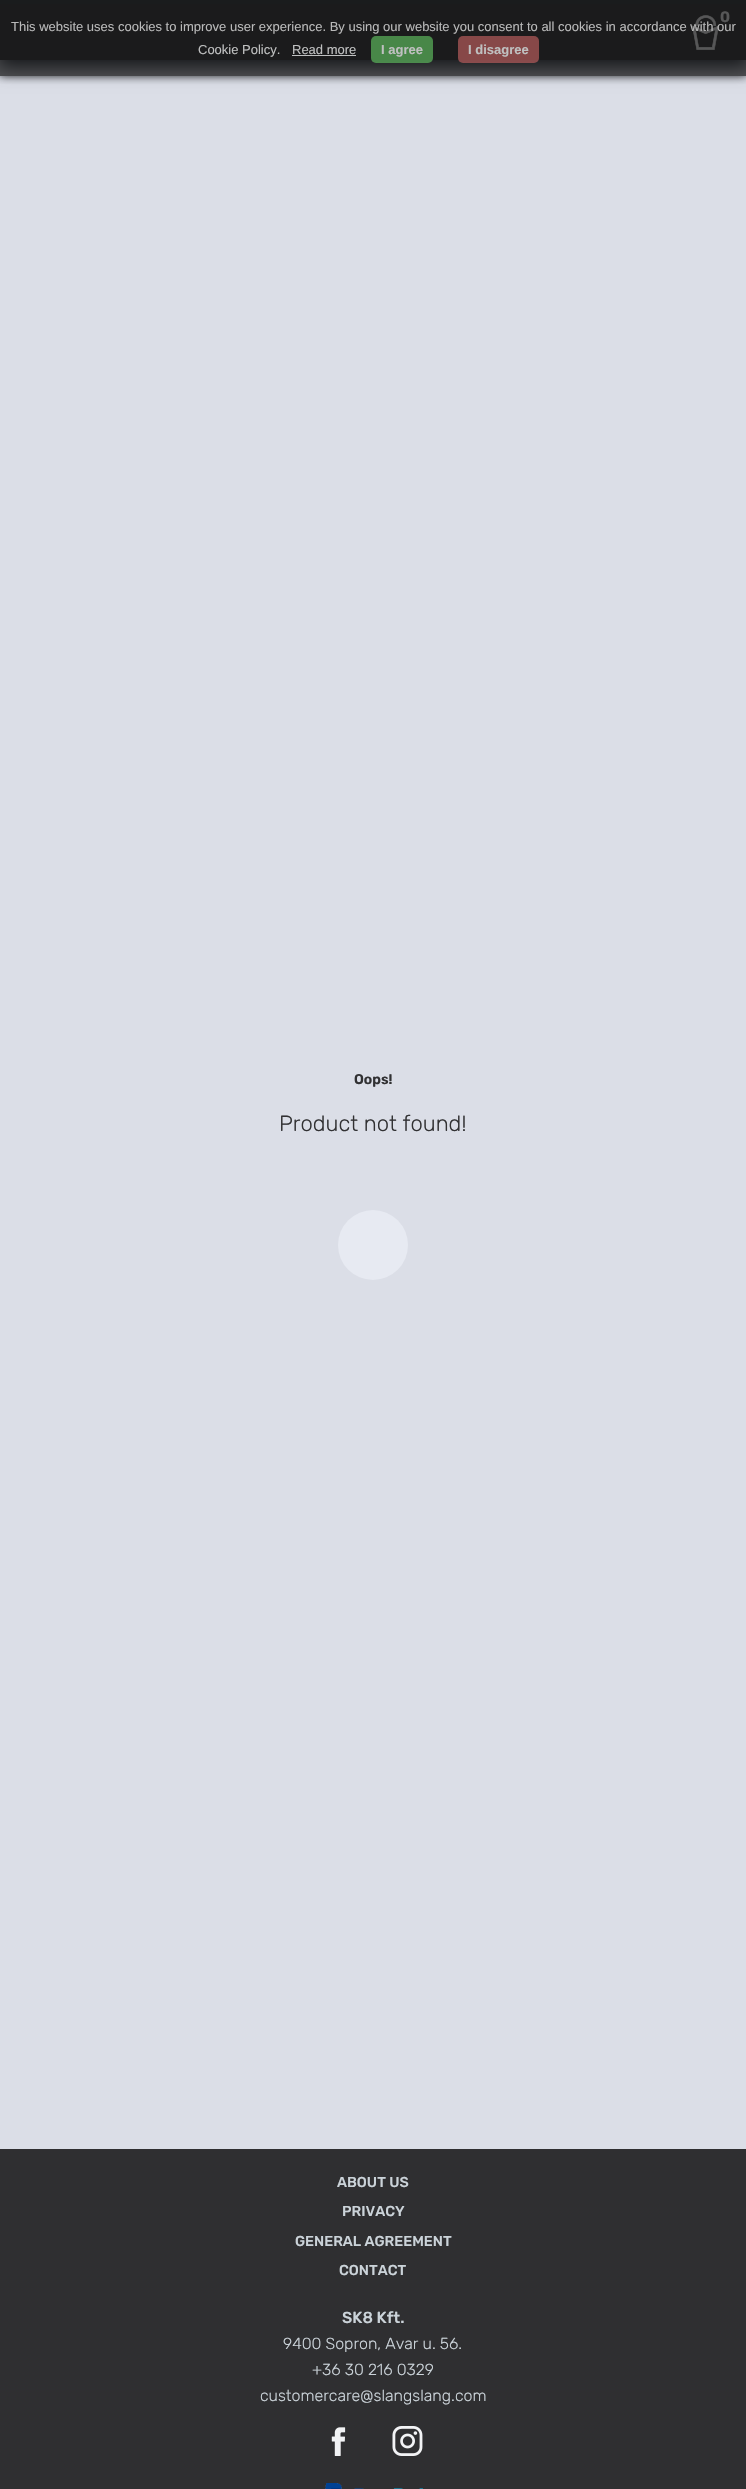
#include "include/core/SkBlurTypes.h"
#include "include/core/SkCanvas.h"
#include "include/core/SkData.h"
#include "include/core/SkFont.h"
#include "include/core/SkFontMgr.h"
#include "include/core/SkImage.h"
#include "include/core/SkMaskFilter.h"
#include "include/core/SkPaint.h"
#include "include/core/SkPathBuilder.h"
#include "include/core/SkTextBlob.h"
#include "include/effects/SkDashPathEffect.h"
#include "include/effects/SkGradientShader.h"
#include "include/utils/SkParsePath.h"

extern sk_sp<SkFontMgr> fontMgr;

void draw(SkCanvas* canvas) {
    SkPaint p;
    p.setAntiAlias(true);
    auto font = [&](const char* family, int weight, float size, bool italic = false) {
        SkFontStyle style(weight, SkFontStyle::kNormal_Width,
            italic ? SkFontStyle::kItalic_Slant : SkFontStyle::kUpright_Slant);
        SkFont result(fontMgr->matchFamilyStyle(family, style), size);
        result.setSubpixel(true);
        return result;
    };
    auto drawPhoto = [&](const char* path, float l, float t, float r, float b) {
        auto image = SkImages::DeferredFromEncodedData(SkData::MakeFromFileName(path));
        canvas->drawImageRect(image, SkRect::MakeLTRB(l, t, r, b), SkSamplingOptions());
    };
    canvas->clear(0xFFDBDEE7);
    p.setColor(0xFF171E28);
    p.setMaskFilter(SkMaskFilter::MakeBlur(kNormal_SkBlurStyle, 9));
    canvas->drawRect(SkRect::MakeLTRB(-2, 1, 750, 67), p);
    p.setMaskFilter(nullptr);
    p.setColor(0xFF2F2F31);
    canvas->drawRect(SkRect::MakeLTRB(0, 4, 746, 60), p);
    p.setColor(0xFF2C3137);
    canvas->drawRect(SkRect::MakeLTRB(0, 0, 746, 4), p);
    drawPhoto("media/1.png", 692, 15, 719, 50);
    auto font1 = font("Rubik", 600, 15);
    p.setColor(0xFFF2F3F5);
    canvas->drawString("0", 720, 22, font1, p);
    auto font2 = font("Rubik", 600, 14);
    p.setColor(0xFF313133);
    canvas->drawString("Oops!", 354, 1084, font2, p);
    auto font3 = font("Rubik", 300, 22);
    canvas->drawString("Product not found!", 279, 1131, font3, p);
    p.setColor(0xFF2F2F31);
    canvas->drawRect(SkRect::MakeLTRB(0, 2149, 746, 2489), p);
    auto font4 = font("Rubik", 500, 14.4f);
    p.setColor(0xFFCBD3D9);
    {
        const struct { const char* s; float x, y; } items[] = {
            {"ABOUT US", 337, 2187},
            {"PRIVACY", 342, 2216},
            {"GENERAL AGREEMENT", 295, 2246},
            {"CONTACT", 339, 2275},
        };
        for (auto [s, x, y] : items) {
            canvas->drawString(s, x, y, font4, p);
        }
    }
    auto font5 = font("Rubik", 500, 16);
    canvas->drawString("SK8 Kft.", 342, 2323, font5, p);
    auto font6 = font("Rubik", 300, 16);
    {
        const struct { const char* s; float x, y; } items[] = {
            {"9400 Sopron, Avar u. 56.", 283, 2349},
            {"+36 30 216 0329", 312, 2375},
            {"customercare@slangslang.com", 260, 2401},
        };
        for (auto [s, x, y] : items) {
            canvas->drawString(s, x, y, font6, p);
        }
    }
    drawPhoto("media/2.png", 331, 2427, 346, 2456);
    drawPhoto("media/3.png", 392, 2426, 423, 2456);
    drawPhoto("media/4.png", 325, 2483, 423, 2489);
    canvas->save();
    canvas->clipRect(SkRect::MakeLTRB(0, 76, 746, 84));
    p.setColor(0xB0000000);
    p.setMaskFilter(SkMaskFilter::MakeBlur(kNormal_SkBlurStyle, 4));
    canvas->drawRect(SkRect::MakeLTRB(0, 0, 746, 76), p);
    p.setMaskFilter(nullptr);
    canvas->restore();
    p.setColor(0xB0111111);
    canvas->drawRect(SkRect::MakeLTRB(0, 0, 746, 76), p);
    auto font7 = font("Liberation Sans", 400, 13);
    p.setColor(0xFFB9B9B9);
    canvas->drawString("This website uses cookies to improve user experience. By using our website you consent to all cookies in accordance with our", 11, 31, font7, p);
    p.setColor(0xFFBFC0C0);
    canvas->drawString("Cookie Policy.", 198, 54, font7, p);
    canvas->drawString("Read more", 292, 54, font7, p);
    canvas->drawRect(SkRect::MakeLTRB(292, 55, 356, 56), p);
    p.setColor(0xB05BB75B);
    canvas->drawRoundRect(SkRect::MakeLTRB(371, 36, 433, 63), 5, 5, p);
    auto font8 = font("Liberation Sans", 700, 13);
    p.setColor(0xFFBFC0C0);
    canvas->drawString("I agree", 381, 54, font8, p);
    p.setColor(0xB0B75B5B);
    canvas->drawRoundRect(SkRect::MakeLTRB(458, 36, 539, 63), 5, 5, p);
    p.setColor(0xFFBFC0C0);
    canvas->drawString("I disagree", 468, 54, font8, p);
    p.setColor(0xFFE7EAF2);
    canvas->drawCircle(373, 1245, 35, p);
}
